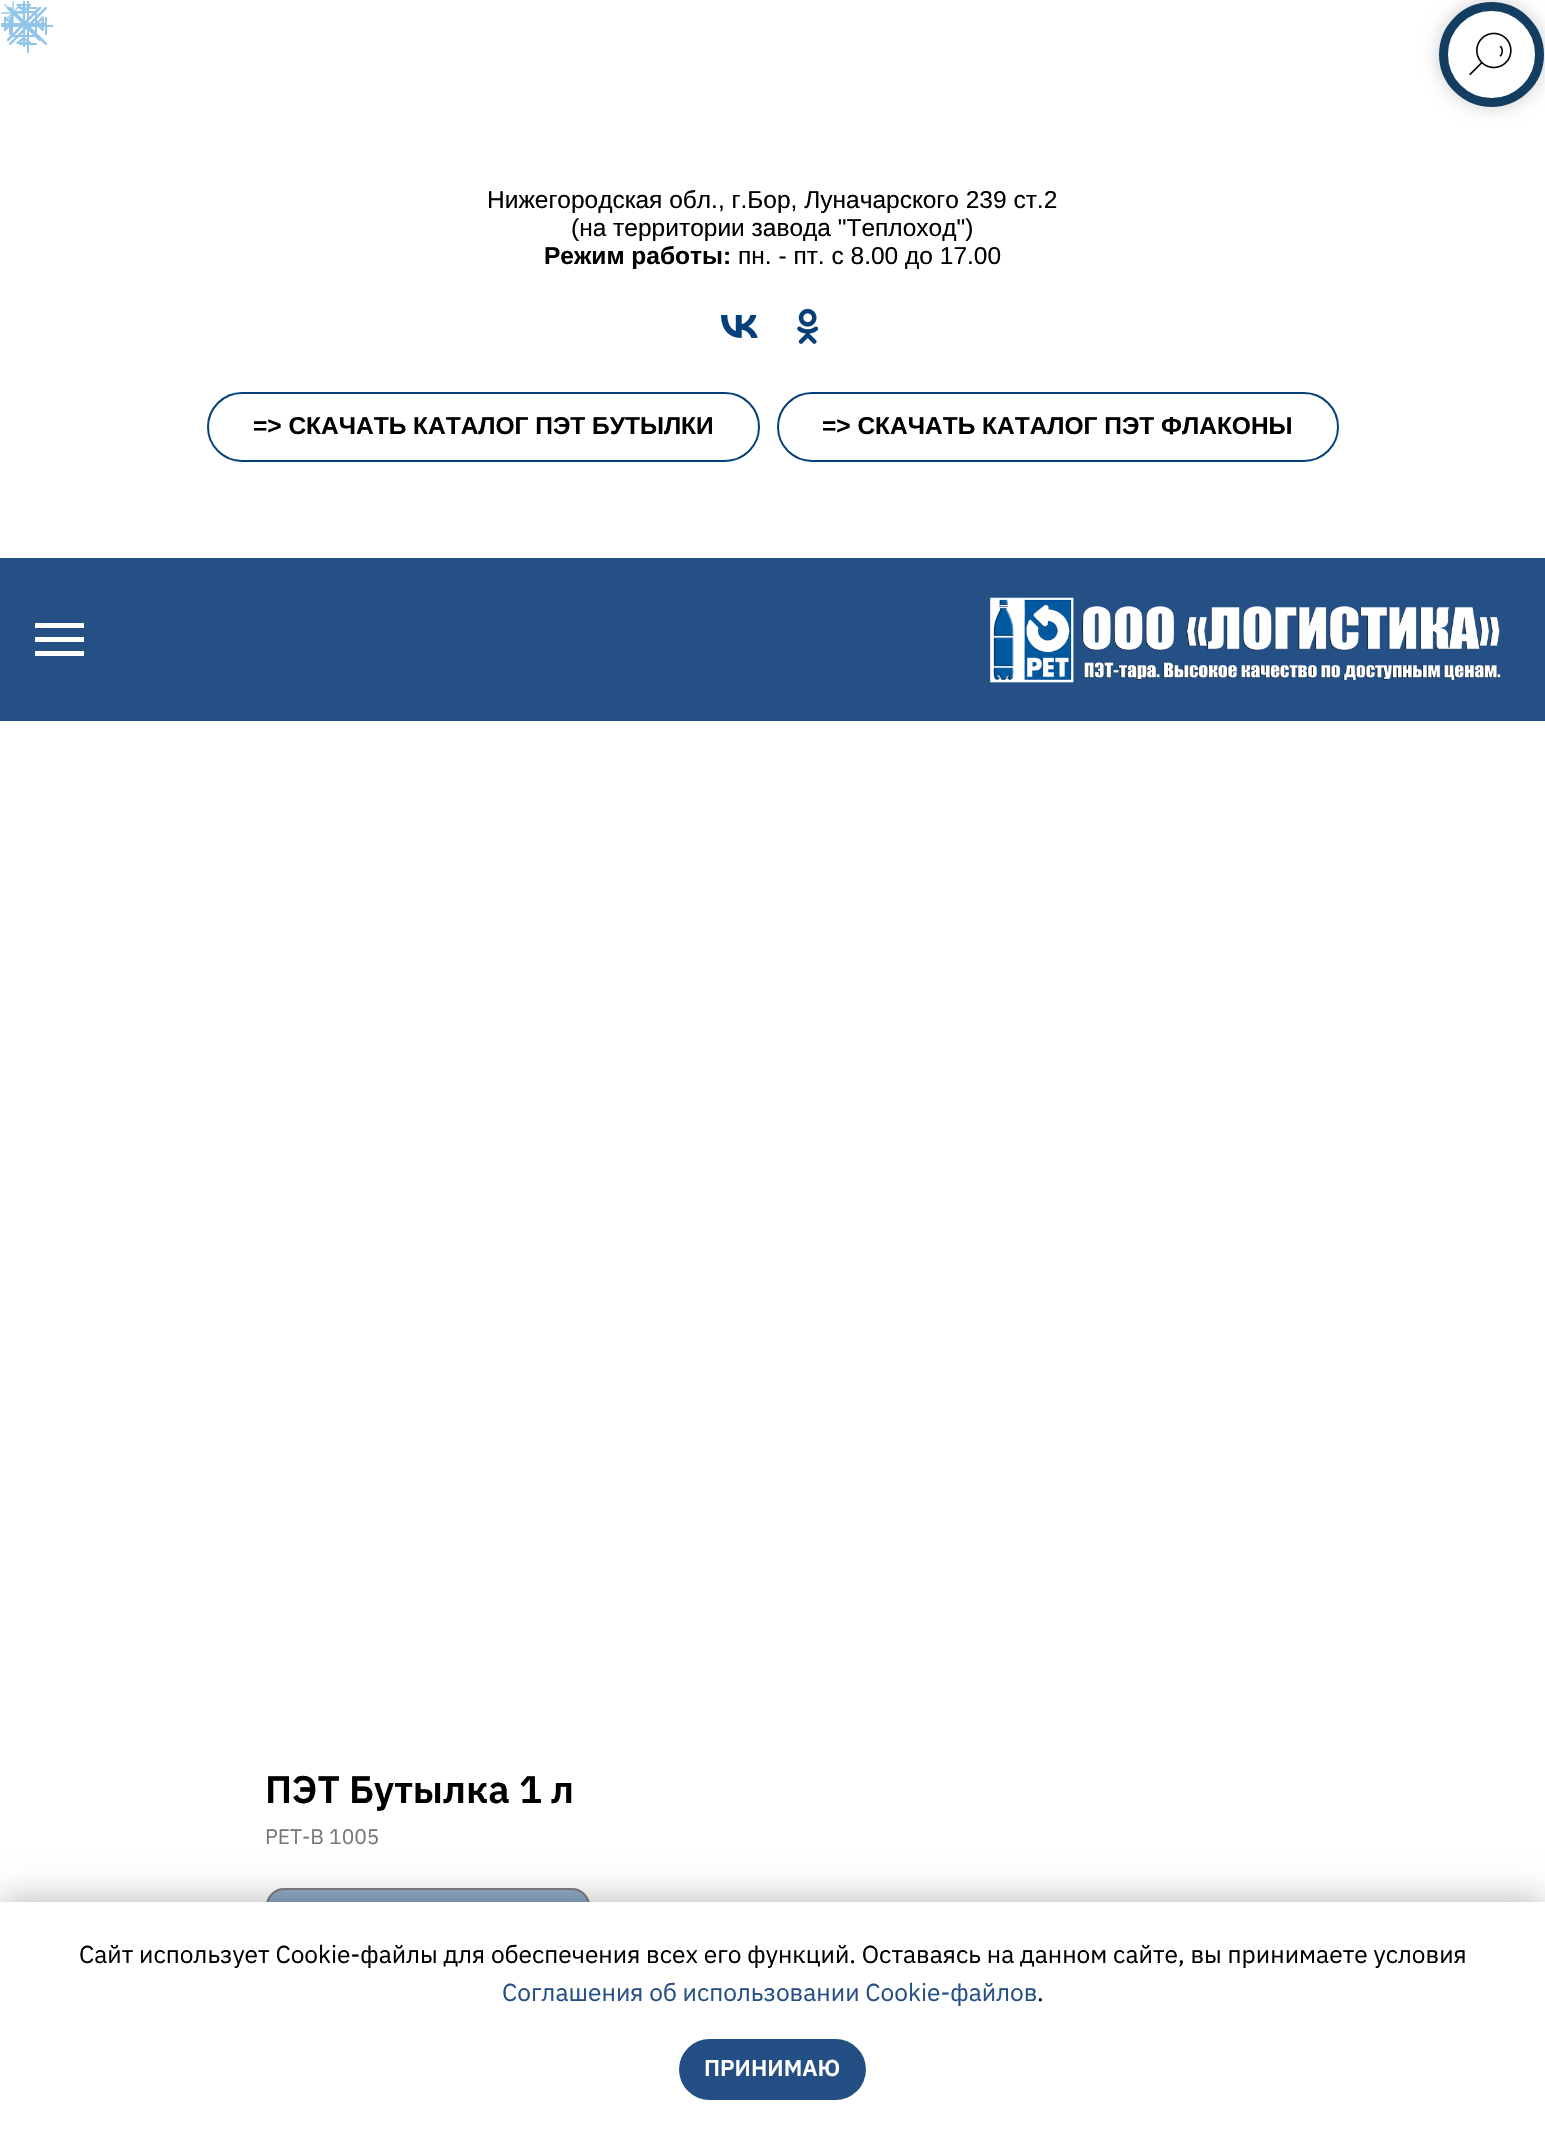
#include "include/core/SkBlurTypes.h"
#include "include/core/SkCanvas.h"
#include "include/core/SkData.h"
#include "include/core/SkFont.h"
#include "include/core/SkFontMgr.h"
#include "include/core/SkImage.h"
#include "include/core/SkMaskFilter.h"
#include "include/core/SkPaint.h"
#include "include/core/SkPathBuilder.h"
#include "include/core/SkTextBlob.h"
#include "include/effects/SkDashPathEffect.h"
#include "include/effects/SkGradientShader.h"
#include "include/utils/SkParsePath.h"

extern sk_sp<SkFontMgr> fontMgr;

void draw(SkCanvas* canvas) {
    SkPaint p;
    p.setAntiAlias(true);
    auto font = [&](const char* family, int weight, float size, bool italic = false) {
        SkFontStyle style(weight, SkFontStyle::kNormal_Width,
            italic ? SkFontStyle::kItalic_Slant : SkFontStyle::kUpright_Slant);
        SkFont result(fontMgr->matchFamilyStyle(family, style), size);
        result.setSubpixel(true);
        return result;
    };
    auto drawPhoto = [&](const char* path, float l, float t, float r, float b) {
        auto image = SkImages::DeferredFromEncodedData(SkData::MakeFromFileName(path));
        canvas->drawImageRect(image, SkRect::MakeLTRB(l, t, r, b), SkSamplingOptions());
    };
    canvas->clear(0xFFFFFFFF);
    p.setStyle(SkPaint::kStroke_Style);
    p.setStrokeWidth(1.8f);
    p.setStrokeCap(SkPaint::kRound_Cap);
    p.setStrokeJoin(SkPaint::kRound_Join);
    p.setColor(0xFFF5FAFD);
    canvas->drawPath(SkPathBuilder().moveTo(24, 2).lineTo(24, 46).moveTo(46, 24).lineTo(2, 24).moveTo(40, 40).lineTo(8, 8).moveTo(40, 8).lineTo(8, 40).close().moveTo(12, 12).lineTo(36, 12).lineTo(36, 36).lineTo(12, 36).close().detach(), p);
    p.setColor(0x4790C5EA);
    canvas->drawPath(SkPathBuilder().moveTo(24, 2).lineTo(24, 46).moveTo(46, 24).lineTo(2, 24).moveTo(40, 40).lineTo(8, 8).moveTo(40, 8).lineTo(8, 40).close().moveTo(12, 12).lineTo(36, 12).lineTo(36, 36).lineTo(12, 36).close().detach(), p);
    p.setColor(0x8090C5EA);
    canvas->drawPath(SkPathBuilder().moveTo(24, 2).lineTo(24, 46).moveTo(46, 24).lineTo(2, 24).moveTo(40, 40).lineTo(8, 8).moveTo(40, 8).lineTo(8, 40).close().moveTo(12, 12).lineTo(36, 12).lineTo(36, 36).lineTo(12, 36).close().detach(), p);
    drawPhoto("media/1.png", 1, 1, 47, 47);
    drawPhoto("media/2.png", 1, 1, 47, 47);
    p.setColor(0x6690C5EA);
    canvas->drawPath(SkPathBuilder().moveTo(24, 2).lineTo(24, 46).moveTo(46, 24).lineTo(2, 24).moveTo(40, 40).lineTo(8, 8).moveTo(40, 8).lineTo(8, 40).close().moveTo(12, 12).lineTo(36, 12).lineTo(36, 36).lineTo(12, 36).close().detach(), p);
    p.setColor(0x3690C5EA);
    canvas->drawPath(SkPathBuilder().moveTo(24, 2).lineTo(24, 46).moveTo(46, 24).lineTo(2, 24).moveTo(40, 40).lineTo(8, 8).moveTo(40, 8).lineTo(8, 40).close().moveTo(12, 12).lineTo(36, 12).lineTo(36, 36).lineTo(12, 36).close().detach(), p);
    p.setColor(0x1A90C5EA);
    canvas->drawPath(SkPathBuilder().moveTo(28, 2).lineTo(28, 52).moveTo(52, 26).lineTo(2, 26).moveTo(46, 8).lineTo(10, 44).moveTo(46, 44).lineTo(10, 8).moveTo(36, 8).lineTo(20, 8).moveTo(36, 44).lineTo(20, 44).moveTo(46, 34).lineTo(46, 18).moveTo(10, 34).lineTo(10, 18).detach(), p);
    p.setColor(0x4A90C5EA);
    canvas->drawPath(SkPathBuilder().moveTo(24, 2).lineTo(24, 46).moveTo(46, 24).lineTo(2, 24).moveTo(40, 40).lineTo(8, 8).moveTo(40, 8).lineTo(8, 40).close().moveTo(12, 12).lineTo(36, 12).lineTo(36, 36).lineTo(12, 36).close().detach(), p);
    p.setColor(0x7D90C5EA);
    canvas->drawPath(SkPathBuilder().moveTo(24, 2).lineTo(24, 46).moveTo(46, 24).lineTo(2, 24).moveTo(40, 40).lineTo(8, 8).moveTo(40, 8).lineTo(8, 40).close().moveTo(12, 12).lineTo(36, 12).lineTo(36, 36).lineTo(12, 36).close().detach(), p);
    p.setColor(0x0A90C5EA);
    canvas->drawPath(SkPathBuilder().moveTo(28, 2).lineTo(28, 52).moveTo(52, 26).lineTo(2, 26).moveTo(46, 8).lineTo(10, 44).moveTo(46, 44).lineTo(10, 8).moveTo(36, 8).lineTo(20, 8).moveTo(36, 44).lineTo(20, 44).moveTo(46, 34).lineTo(46, 18).moveTo(10, 34).lineTo(10, 18).detach(), p);
    p.setColor(0x3B90C5EA);
    canvas->drawPath(SkPathBuilder().moveTo(24, 2).lineTo(24, 46).moveTo(46, 24).lineTo(2, 24).moveTo(40, 40).lineTo(8, 8).moveTo(40, 8).lineTo(8, 40).close().moveTo(12, 12).lineTo(36, 12).lineTo(36, 36).lineTo(12, 36).close().detach(), p);
    p.setColor(0x3390C5EA);
    canvas->drawPath(SkPathBuilder().moveTo(28, 2).lineTo(28, 52).moveTo(52, 26).lineTo(2, 26).moveTo(46, 8).lineTo(10, 44).moveTo(46, 44).lineTo(10, 8).moveTo(36, 8).lineTo(20, 8).moveTo(36, 44).lineTo(20, 44).moveTo(46, 34).lineTo(46, 18).moveTo(10, 34).lineTo(10, 18).detach(), p);
    p.setColor(0x6E90C5EA);
    canvas->drawPath(SkPathBuilder().moveTo(24, 2).lineTo(24, 46).moveTo(46, 24).lineTo(2, 24).moveTo(40, 40).lineTo(8, 8).moveTo(40, 8).lineTo(8, 40).close().moveTo(12, 12).lineTo(36, 12).lineTo(36, 36).lineTo(12, 36).close().detach(), p);
    drawPhoto("media/3.png", 4, 4, 44, 44);
    p.setColor(0x2490C5EA);
    canvas->drawPath(SkPathBuilder().moveTo(13, 2).lineTo(13, 24).moveTo(24, 13).lineTo(2, 13).moveTo(20.5f, 5).lineTo(5, 20.5f).moveTo(20.5f, 20.5f).lineTo(5, 5).detach(), p);
    p.setColor(0x1290C5EA);
    canvas->drawPath(SkPathBuilder().moveTo(28, 2).lineTo(28, 52).moveTo(52, 26).lineTo(2, 26).moveTo(46, 8).lineTo(10, 44).moveTo(46, 44).lineTo(10, 8).moveTo(36, 8).lineTo(20, 8).moveTo(36, 44).lineTo(20, 44).moveTo(46, 34).lineTo(46, 18).moveTo(10, 34).lineTo(10, 18).detach(), p);
    p.setColor(0x5E90C5EA);
    canvas->drawPath(SkPathBuilder().moveTo(13, 2).lineTo(13, 24).moveTo(24, 13).lineTo(2, 13).moveTo(20.5f, 5).lineTo(5, 20.5f).moveTo(20.5f, 20.5f).lineTo(5, 5).detach(), p);
    p.setColor(0x4790C5EA);
    canvas->drawPath(SkPathBuilder().moveTo(28, 2).lineTo(28, 52).moveTo(52, 26).lineTo(2, 26).moveTo(46, 8).lineTo(10, 44).moveTo(46, 44).lineTo(10, 8).moveTo(36, 8).lineTo(20, 8).moveTo(36, 44).lineTo(20, 44).moveTo(46, 34).lineTo(46, 18).moveTo(10, 34).lineTo(10, 18).detach(), p);
    p.setColor(0x5490C5EA);
    canvas->drawPath(SkPathBuilder().moveTo(28, 2).lineTo(28, 52).moveTo(52, 26).lineTo(2, 26).moveTo(46, 8).lineTo(10, 44).moveTo(46, 44).lineTo(10, 8).moveTo(36, 8).lineTo(20, 8).moveTo(36, 44).lineTo(20, 44).moveTo(46, 34).lineTo(46, 18).moveTo(10, 34).lineTo(10, 18).detach(), p);
    p.setColor(0x6990C5EA);
    canvas->drawPath(SkPathBuilder().moveTo(24, 2).lineTo(24, 46).moveTo(46, 24).lineTo(2, 24).moveTo(40, 40).lineTo(8, 8).moveTo(40, 8).lineTo(8, 40).close().moveTo(12, 12).lineTo(36, 12).lineTo(36, 36).lineTo(12, 36).close().detach(), p);
    drawPhoto("media/4.png", 4, 4, 44, 44);
    drawPhoto("media/5.png", 4, 4, 44, 44);
    drawPhoto("media/6.png", 4, 4, 44, 44);
    drawPhoto("media/7.png", 4, 4, 44, 44);
    p.setColor(0x7A90C5EA);
    canvas->drawPath(SkPathBuilder().moveTo(28, 2).lineTo(28, 52).moveTo(52, 26).lineTo(2, 26).moveTo(46, 8).lineTo(10, 44).moveTo(46, 44).lineTo(10, 8).moveTo(36, 8).lineTo(20, 8).moveTo(36, 44).lineTo(20, 44).moveTo(46, 34).lineTo(46, 18).moveTo(10, 34).lineTo(10, 18).detach(), p);
    p.setColor(0x4590C5EA);
    canvas->drawPath(SkPathBuilder().moveTo(28, 2).lineTo(28, 52).moveTo(52, 26).lineTo(2, 26).moveTo(46, 8).lineTo(10, 44).moveTo(46, 44).lineTo(10, 8).moveTo(36, 8).lineTo(20, 8).moveTo(36, 44).lineTo(20, 44).moveTo(46, 34).lineTo(46, 18).moveTo(10, 34).lineTo(10, 18).detach(), p);
    p.setColor(0x7890C5EA);
    canvas->drawPath(SkPathBuilder().moveTo(28, 2).lineTo(28, 52).moveTo(52, 26).lineTo(2, 26).moveTo(46, 8).lineTo(10, 44).moveTo(46, 44).lineTo(10, 8).moveTo(36, 8).lineTo(20, 8).moveTo(36, 44).lineTo(20, 44).moveTo(46, 34).lineTo(46, 18).moveTo(10, 34).lineTo(10, 18).detach(), p);
    p.setColor(0x6190C5EA);
    canvas->drawPath(SkPathBuilder().moveTo(28, 2).lineTo(28, 52).moveTo(52, 26).lineTo(2, 26).moveTo(46, 8).lineTo(10, 44).moveTo(46, 44).lineTo(10, 8).moveTo(36, 8).lineTo(20, 8).moveTo(36, 44).lineTo(20, 44).moveTo(46, 34).lineTo(46, 18).moveTo(10, 34).lineTo(10, 18).detach(), p);
    p.setColor(0x4790C5EA);
    canvas->drawPath(SkPathBuilder().moveTo(28, 2).lineTo(28, 52).moveTo(52, 26).lineTo(2, 26).moveTo(46, 8).lineTo(10, 44).moveTo(46, 44).lineTo(10, 8).moveTo(36, 8).lineTo(20, 8).moveTo(36, 44).lineTo(20, 44).moveTo(46, 34).lineTo(46, 18).moveTo(10, 34).lineTo(10, 18).detach(), p);
    p.setColor(0x3B90C5EA);
    canvas->drawPath(SkPathBuilder().moveTo(13, 2).lineTo(13, 24).moveTo(24, 13).lineTo(2, 13).moveTo(20.5f, 5).lineTo(5, 20.5f).moveTo(20.5f, 20.5f).lineTo(5, 5).detach(), p);
    drawPhoto("media/8.png", 4, 4, 44, 44);
    drawPhoto("media/9.png", 4, 4, 44, 44);
    canvas->drawPath(SkPathBuilder().moveTo(13, 2).lineTo(13, 24).moveTo(24, 13).lineTo(2, 13).moveTo(20.5f, 5).lineTo(5, 20.5f).moveTo(20.5f, 20.5f).lineTo(5, 5).detach(), p);
    drawPhoto("media/10.png", 4, 4, 44, 43);
    p.setColor(0x5C90C5EA);
    canvas->drawPath(SkPathBuilder().moveTo(28, 2).lineTo(28, 52).moveTo(52, 26).lineTo(2, 26).moveTo(46, 8).lineTo(10, 44).moveTo(46, 44).lineTo(10, 8).moveTo(36, 8).lineTo(20, 8).moveTo(36, 44).lineTo(20, 44).moveTo(46, 34).lineTo(46, 18).moveTo(10, 34).lineTo(10, 18).detach(), p);
    p.setColor(0x7390C5EA);
    canvas->drawPath(SkPathBuilder().moveTo(28, 2).lineTo(28, 52).moveTo(52, 26).lineTo(2, 26).moveTo(46, 8).lineTo(10, 44).moveTo(46, 44).lineTo(10, 8).moveTo(36, 8).lineTo(20, 8).moveTo(36, 44).lineTo(20, 44).moveTo(46, 34).lineTo(46, 18).moveTo(10, 34).lineTo(10, 18).detach(), p);
    canvas->save();
    canvas->clipPath(SkPathBuilder(SkPathFillType::kEvenOdd).moveTo(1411, 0).lineTo(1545, 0).lineTo(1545, 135).lineTo(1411, 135).close().moveTo(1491.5f, 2).cubicTo(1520.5f, 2, 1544, 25.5f, 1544, 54.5f).cubicTo(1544, 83.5f, 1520.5f, 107, 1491.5f, 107).cubicTo(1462.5f, 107, 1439, 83.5f, 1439, 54.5f).cubicTo(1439, 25.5f, 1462.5f, 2, 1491.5f, 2).close().detach(), true);
    p.setStyle(SkPaint::kFill_Style);
    p.setColor(0x33000000);
    p.setMaskFilter(SkMaskFilter::MakeBlur(kNormal_SkBlurStyle, 9));
    canvas->drawRoundRect(SkRect::MakeLTRB(1439, 2, 1544, 107), 52.5f, 52.5f, p);
    p.setMaskFilter(nullptr);
    canvas->restore();
    p.setColor(0xCCFFFFFF);
    canvas->drawCircle(1491.5f, 54.5f, 48, p);
    p.setStyle(SkPaint::kStroke_Style);
    p.setStrokeWidth(9);
    p.setStrokeCap(SkPaint::kButt_Cap);
    p.setStrokeJoin(SkPaint::kMiter_Join);
    p.setColor(0xFF133E61);
    canvas->drawCircle(1491.5f, 54.5f, 48, p);
    drawPhoto("media/11.png", 1469, 32, 1512, 76);
    auto font1 = font("Liberation Sans", 400, 24.5f);
    p.setStyle(SkPaint::kFill_Style);
    p.setColor(0xFF000000);
    canvas->drawString("Нижегородская обл., г.Бор, Луначарского 239 ст.2", 487, 208, font1, p);
    canvas->drawString("(на территории завода \"Теплоход\")", 571, 236, font1, p);
    auto font2 = font("Liberation Sans", 700, 24.5f);
    canvas->drawString("Режим работы:", 544, 264, font2, p);
    canvas->drawString("пн. - пт. с 8.00 до 17.00", 738, 264, font1, p);
    drawPhoto("media/12.png", 721, 315, 758, 338);
    drawPhoto("media/13.png", 797, 308, 819, 344);
    p.setStyle(SkPaint::kStroke_Style);
    p.setStrokeWidth(2);
    p.setColor(0xFF04417A);
    canvas->drawRoundRect(SkRect::MakeLTRB(208, 393, 759, 461), 34, 34, p);
    p.setStyle(SkPaint::kFill_Style);
    p.setColor(0xFF000000);
    canvas->drawString("=> СКАЧАТЬ КАТАЛОГ ПЭТ БУТЫЛКИ", 253, 434, font2, p);
    p.setStyle(SkPaint::kStroke_Style);
    p.setColor(0xFF04417A);
    canvas->drawRoundRect(SkRect::MakeLTRB(778, 393, 1338, 461), 34, 34, p);
    canvas->save();
    canvas->clipRect(SkRect::MakeLTRB(823, 410, 1293, 445));
    p.setStyle(SkPaint::kFill_Style);
    p.setColor(0xFF000000);
    canvas->drawString("=> СКАЧАТЬ КАТАЛОГ ПЭТ ФЛАКОНЫ", 822, 434, font2, p);
    canvas->restore();
    {
        const struct { float l, t, r, b; SkColor color; } items[] = {
            {0, 558, 1545, 721, 0xFF245085},
            {35, 623, 84, 628, 0xFFFFFFFF},
            {35, 637, 84, 642, 0xFFFFFFFF},
            {35, 651, 84, 656, 0xFFFFFFFF},
        };
        for (auto [l, t, r, b, color] : items) {
            p.setColor(color);
            canvas->drawRect(SkRect::MakeLTRB(l, t, r, b), p);
        }
    }
    drawPhoto("media/14.png", 990, 597, 1501, 683);
    auto font3 = font("IBM Plex Sans", 600, 38.5f);
    p.setColor(0xFF000000);
    canvas->drawString("ПЭТ Бутылка 1 л", 265, 1803, font3, p);
    auto font4 = font("IBM Plex Sans", 400, 21);
    p.setColor(0xFF777777);
    canvas->drawString("PET-B 1005", 265, 1844, font4, p);
    p.setColor(0xFF8FAAC6);
    canvas->drawRoundRect(SkRect::MakeLTRB(267, 1889, 589, 1966), 17, 17, p);
    p.setStyle(SkPaint::kStroke_Style);
    p.setColor(0xFF808080);
    canvas->drawRoundRect(SkRect::MakeLTRB(267, 1889, 589, 1966), 17, 17, p);
    p.setStyle(SkPaint::kFill_Style);
    p.setColor(0x4D000000);
    p.setMaskFilter(SkMaskFilter::MakeBlur(kNormal_SkBlurStyle, 17.5f));
    canvas->drawRect(SkRect::MakeLTRB(0, 1902, 1545, 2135), p);
    p.setMaskFilter(nullptr);
    p.setColor(0xFFFFFFFF);
    canvas->drawRect(SkRect::MakeLTRB(0, 1902, 1545, 2134), p);
    auto font5 = font("IBM Plex Sans", 400, 24.5f);
    p.setColor(0xFF000000);
    canvas->drawString("Сайт использует Cookie-файлы для обеспечения всех его функций. Оставаясь на данном сайте, вы принимаете условия", 79, 1963, font5, p);
    p.setColor(0xFF244F84);
    canvas->drawString("Соглашения об использовании Cookie-файлов", 502, 2001, font5, p);
    p.setColor(0xFF000000);
    canvas->drawString(".", 1037, 2001, font5, p);
    p.setColor(0xFF244F84);
    canvas->drawRoundRect(SkRect::MakeLTRB(679, 2039, 866, 2100), 30.5f, 30.5f, p);
    auto font6 = font("IBM Plex Sans", 600, 22.75f);
    p.setColor(0xFFFFFFFF);
    canvas->drawString("ПРИНИМАЮ", 704, 2076, font6, p);
}
